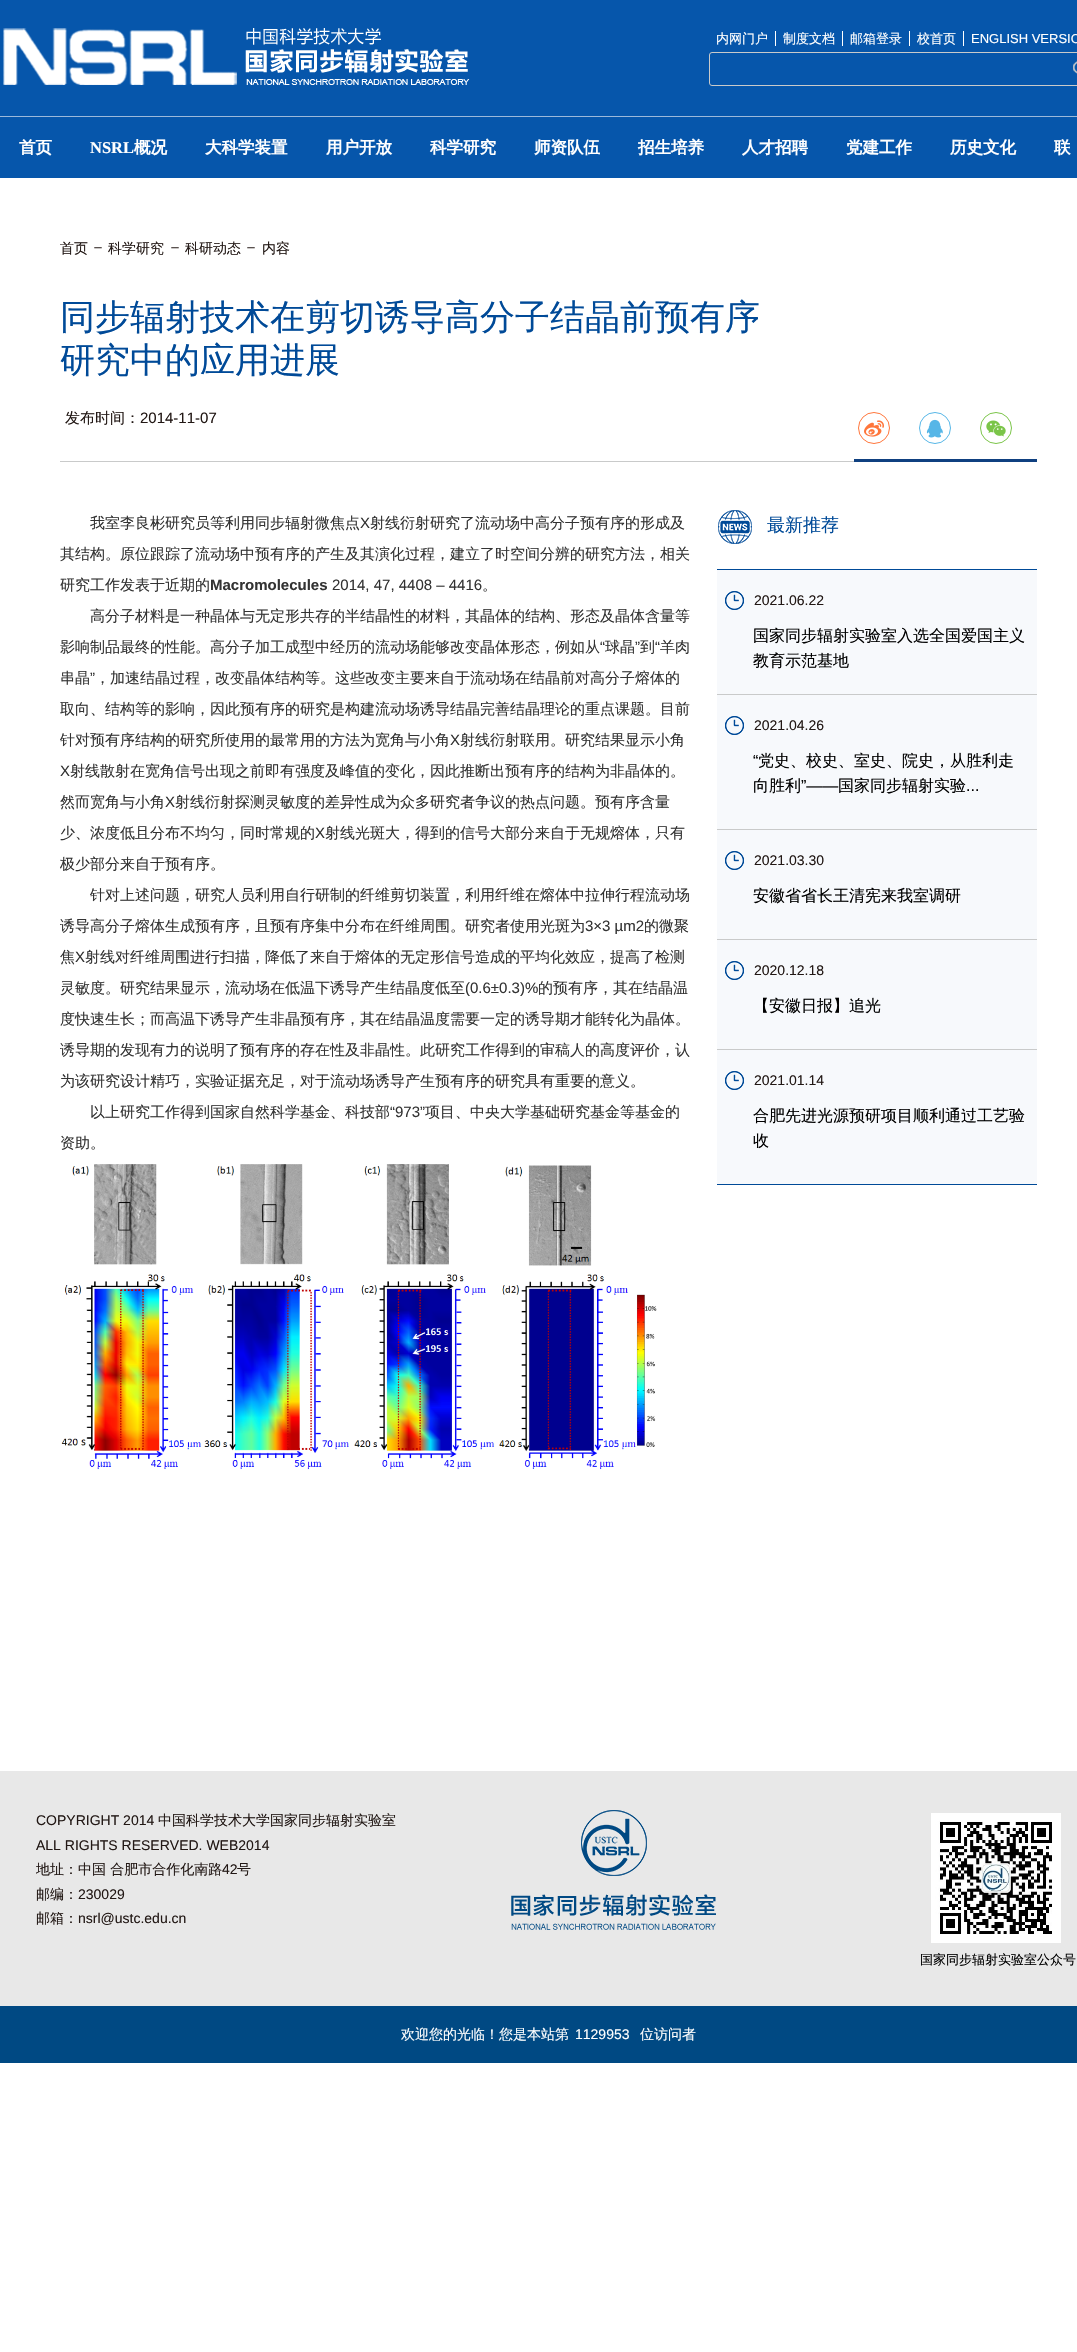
#include "include/core/SkBlurTypes.h"
#include "include/core/SkCanvas.h"
#include "include/core/SkData.h"
#include "include/core/SkFont.h"
#include "include/core/SkFontMgr.h"
#include "include/core/SkImage.h"
#include "include/core/SkMaskFilter.h"
#include "include/core/SkPaint.h"
#include "include/core/SkPathBuilder.h"
#include "include/core/SkTextBlob.h"
#include "include/effects/SkDashPathEffect.h"
#include "include/effects/SkGradientShader.h"
#include "include/utils/SkParsePath.h"

extern sk_sp<SkFontMgr> fontMgr;

void draw(SkCanvas* canvas) {
    SkPaint p;
    p.setAntiAlias(true);
    auto font = [&](const char* family, int weight, float size, bool italic = false) {
        SkFontStyle style(weight, SkFontStyle::kNormal_Width,
            italic ? SkFontStyle::kItalic_Slant : SkFontStyle::kUpright_Slant);
        SkFont result(fontMgr->matchFamilyStyle(family, style), size);
        result.setSubpixel(true);
        return result;
    };
    auto drawPhoto = [&](const char* path, float l, float t, float r, float b) {
        auto image = SkImages::DeferredFromEncodedData(SkData::MakeFromFileName(path));
        canvas->drawImageRect(image, SkRect::MakeLTRB(l, t, r, b), SkSamplingOptions());
    };
    canvas->clear(0xFFFFFFFF);
    p.setColor(0xFF0656AB);
    canvas->drawRect(SkRect::MakeLTRB(0, 0, 1077, 116), p);
    drawPhoto("media/1.png", 3, 28, 470, 85);
    auto font1 = font("WenQuanYi Zen Hei", 500, 13);
    p.setColor(0xFFFFFFFF);
    canvas->drawString("内网门户", 716, 43, font1, p);
    canvas->drawRect(SkRect::MakeLTRB(775, 31, 776, 46), p);
    canvas->drawString("制度文档", 783, 43, font1, p);
    canvas->drawRect(SkRect::MakeLTRB(842, 31, 843, 46), p);
    canvas->drawString("邮箱登录", 850, 43, font1, p);
    canvas->drawRect(SkRect::MakeLTRB(909, 31, 910, 46), p);
    canvas->drawString("校首页", 917, 43, font1, p);
    canvas->drawRect(SkRect::MakeLTRB(963, 31, 964, 46), p);
    auto font2 = font("Liberation Sans", 400, 13);
    canvas->drawString("ENGLISH VERSIO", 971, 43, font2, p);
    p.setStyle(SkPaint::kStroke_Style);
    p.setStrokeWidth(1);
    p.setColor(0xFFC9CACA);
    canvas->drawRoundRect(SkRect::MakeLTRB(709.5f, 52.5f, 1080.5f, 85.5f), 2.5f, 2.5f, p);
    drawPhoto("media/2.png", 1073, 61, 1077, 74);
    p.setStyle(SkPaint::kFill_Style);
    p.setColor(0xFF0656AB);
    canvas->drawRect(SkRect::MakeLTRB(0, 117, 1077, 178), p);
    p.setColor(0xFF9BB9DB);
    canvas->drawRect(SkRect::MakeLTRB(0, 116, 1077, 117), p);
    auto font3 = font("WenQuanYi Zen Hei", 700, 16.5f);
    p.setColor(0xFFFFFFFF);
    canvas->drawString("首页", 19, 153, font3, p);
    auto font4 = font("Liberation Serif", 700, 16.5f);
    canvas->drawString("NSRL", 90, 153, font4, p);
    {
        const struct { const char* s; float x, y; } items[] = {
            {"概况", 134, 153},
            {"大科学装置", 205, 153},
            {"用户开放", 326, 153},
            {"科学研究", 430, 153},
            {"师资队伍", 534, 153},
            {"招生培养", 638, 153},
            {"人才招聘", 742, 153},
            {"党建工作", 846, 153},
            {"历史文化", 950, 153},
            {"联", 1054, 153},
        };
        for (auto [s, x, y] : items) {
            canvas->drawString(s, x, y, font3, p);
        }
    }
    auto font5 = font("WenQuanYi Zen Hei", 500, 14);
    p.setColor(0xFF221815);
    canvas->drawString("首页", 60, 253, font5, p);
    drawPhoto("media/3.png", 94, 247, 102, 249);
    canvas->drawString("科学研究", 108, 253, font5, p);
    drawPhoto("media/3.png", 171, 247, 179, 249);
    canvas->drawString("科研动态", 185, 253, font5, p);
    drawPhoto("media/3.png", 247, 247, 255, 249);
    canvas->drawString("内容", 262, 253, font5, p);
    auto font6 = font("WenQuanYi Zen Hei", 500, 35);
    p.setColor(0xFF004A98);
    canvas->drawString("同步辐射技术在剪切诱导高分子结晶前预有序", 60, 329, font6, p);
    canvas->drawString("研究中的应用进展", 60, 372, font6, p);
    p.setColor(0xFFC9CACA);
    canvas->drawRect(SkRect::MakeLTRB(60, 461, 854, 462), p);
    auto font7 = font("WenQuanYi Zen Hei", 500, 15);
    p.setColor(0xFF221815);
    canvas->drawString("发布时间：", 65, 423, font7, p);
    auto font8 = font("Liberation Sans", 400, 15);
    canvas->drawString("2014-11-07", 140, 423, font8, p);
    p.setColor(0xFF0F4080);
    canvas->drawRect(SkRect::MakeLTRB(854, 459, 1037, 462), p);
    p.setStyle(SkPaint::kStroke_Style);
    p.setColor(0xFFFF763B);
    canvas->drawCircle(874, 428, 15.5f, p);
    drawPhoto("media/4.png", 864, 420, 884, 437);
    p.setColor(0xFF56B6E7);
    canvas->drawCircle(935, 428, 15.5f, p);
    drawPhoto("media/5.png", 926, 419, 943, 438);
    p.setColor(0xFF7BC549);
    canvas->drawCircle(996, 428, 15.5f, p);
    drawPhoto("media/6.png", 986, 420, 1006, 437);
    p.setStyle(SkPaint::kFill_Style);
    p.setColor(0xFF333333);
    canvas->drawString("我室李良彬研究员等利用同步辐射微焦点", 90, 528, font7, p);
    canvas->drawString("X", 360, 528, font8, p);
    {
        const struct { const char* s; float x, y; } items[] = {
            {"射线衍射研究了流动场中高分子预有序的形成及", 370, 528},
            {"其结构。原位跟踪了流动场中预有序的产生及其演化过程，建立了时空间分辨的研究方法，相关", 60, 559},
            {"研究工作发表于近期的", 60, 590},
        };
        for (auto [s, x, y] : items) {
            canvas->drawString(s, x, y, font7, p);
        }
    }
    auto font9 = font("Liberation Sans", 700, 15);
    canvas->drawString("Macromolecules", 210, 590, font9, p);
    canvas->drawString("2014, 47, 4408 – 4416", 332, 590, font8, p);
    {
        const struct { const char* s; float x, y; } items[] = {
            {"。", 482, 590},
            {"高分子材料是一种晶体与无定形共存的半结晶性的材料，其晶体的结构、形态及晶体含量等", 90, 621},
            {"影响制品最终的性能。高分子加工成型中经历的流动场能够改变晶体形态，例如从", 60, 652},
        };
        for (auto [s, x, y] : items) {
            canvas->drawString(s, x, y, font7, p);
        }
    }
    canvas->drawString("“", 600, 652, font8, p);
    canvas->drawString("球晶", 605, 652, font7, p);
    canvas->drawString("”", 635, 652, font8, p);
    canvas->drawString("到", 640, 652, font7, p);
    canvas->drawString("“", 655, 652, font8, p);
    canvas->drawString("羊肉", 660, 652, font7, p);
    canvas->drawString("串晶", 60, 683, font7, p);
    canvas->drawString("”", 90, 683, font8, p);
    {
        const struct { const char* s; float x, y; } items[] = {
            {"，加速结晶过程，改变晶体结构等。这些改变主要来自于流动场在结晶前对高分子熔体的", 95, 683},
            {"取向、结构等的影响，因此预有序的研究是构建流动场诱导结晶完善结晶理论的重点课题。目前", 60, 714},
            {"针对预有序结构的研究所使用的最常用的方法为宽角与小角", 60, 745},
        };
        for (auto [s, x, y] : items) {
            canvas->drawString(s, x, y, font7, p);
        }
    }
    canvas->drawString("X", 450, 745, font8, p);
    canvas->drawString("射线衍射联用。研究结果显示小角", 460, 745, font7, p);
    canvas->drawString("X", 60, 776, font8, p);
    canvas->drawString("射线散射在宽角信号出现之前即有强度及峰值的变化，因此推断出预有序的结构为非晶体的。", 70, 776, font7, p);
    canvas->drawString("然而宽角与小角", 60, 807, font7, p);
    canvas->drawString("X", 165, 807, font8, p);
    canvas->drawString("射线衍射探测灵敏度的差异性成为众多研究者争议的热点问题。预有序含量", 175, 807, font7, p);
    canvas->drawString("少、浓度低且分布不均匀，同时常规的", 60, 838, font7, p);
    canvas->drawString("X", 315, 838, font8, p);
    {
        const struct { const char* s; float x, y; } items[] = {
            {"射线光斑大，得到的信号大部分来自于无规熔体，只有", 325, 838},
            {"极少部分来自于预有序。", 60, 869},
            {"针对上述问题，研究人员利用自行研制的纤维剪切装置，利用纤维在熔体中拉伸行程流动场", 90, 900},
            {"诱导高分子熔体生成预有序，且预有序集中分布在纤维周围。研究者使用光斑为", 60, 931},
        };
        for (auto [s, x, y] : items) {
            canvas->drawString(s, x, y, font7, p);
        }
    }
    canvas->drawString("3×3 µm2", 585, 931, font8, p);
    canvas->drawString("的微聚", 644, 931, font7, p);
    canvas->drawString("焦", 60, 962, font7, p);
    canvas->drawString("X", 75, 962, font8, p);
    canvas->drawString("射线对纤维周围进行扫描，降低了来自于熔体的无定形信号造成的平均化效应，提高了检测", 85, 962, font7, p);
    canvas->drawString("灵敏度。研究结果显示，流动场在低温下诱导产生结晶度低至", 60, 993, font7, p);
    canvas->drawString("(0.6±0.3)%", 465, 993, font8, p);
    {
        const struct { const char* s; float x, y; } items[] = {
            {"的预有序，其在结晶温", 538, 993},
            {"度快速生长；而高温下诱导产生非晶预有序，其在结晶温度需要一定的诱导期才能转化为晶体。", 60, 1024},
            {"诱导期的发现有力的说明了预有序的存在性及非晶性。此研究工作得到的审稿人的高度评价，认", 60, 1055},
            {"为该研究设计精巧，实验证据充足，对于流动场诱导产生预有序的研究具有重要的意义。", 60, 1086},
            {"以上研究工作得到国家自然科学基金、科技部", 90, 1117},
        };
        for (auto [s, x, y] : items) {
            canvas->drawString(s, x, y, font7, p);
        }
    }
    canvas->drawString("“973”", 390, 1117, font8, p);
    canvas->drawString("项目、中央大学基础研究基金等基金的", 425, 1117, font7, p);
    canvas->drawString("资助。", 60, 1148, font7, p);
    drawPhoto("media/7.png", 61, 1164, 657, 1470);
    drawPhoto("media/8.png", 718, 510, 752, 544);
    auto font10 = font("WenQuanYi Zen Hei", 500, 18);
    p.setColor(0xFF004A98);
    canvas->drawString("最新推荐", 767, 531, font10, p);
    {
        const struct { float l, t, r, b; SkColor color; } items[] = {
            {717, 570, 1037, 1184, 0xFFF7F9FC},
            {717, 569, 1037, 570, 0xFF004A98},
            {717, 1184, 1037, 1185, 0xFF004A98},
        };
        for (auto [l, t, r, b, color] : items) {
            p.setColor(color);
            canvas->drawRect(SkRect::MakeLTRB(l, t, r, b), p);
        }
    }
    drawPhoto("media/9.png", 725, 591, 744, 610);
    auto font11 = font("Liberation Sans", 400, 14);
    p.setColor(0xFF221815);
    canvas->drawString("2021.06.22", 754, 605, font11, p);
    auto font12 = font("WenQuanYi Zen Hei", 500, 16);
    p.setColor(0xFF000000);
    canvas->drawString("国家同步辐射实验室入选全国爱国主义", 753, 641, font12, p);
    canvas->drawString("教育示范基地", 753, 666, font12, p);
    p.setColor(0xFFC9CACA);
    canvas->drawRect(SkRect::MakeLTRB(717, 694, 1037, 695), p);
    drawPhoto("media/9.png", 725, 716, 744, 735);
    p.setColor(0xFF221815);
    canvas->drawString("2021.04.26", 754, 730, font11, p);
    auto font13 = font("Liberation Sans", 400, 16);
    p.setColor(0xFF000000);
    canvas->drawString("“", 753, 766, font13, p);
    canvas->drawString("党史、校史、室史、院史，从胜利走", 758, 766, font12, p);
    canvas->drawString("向胜利", 753, 791, font12, p);
    canvas->drawString("”——", 801, 791, font13, p);
    canvas->drawString("国家同步辐射实验", 838, 791, font12, p);
    canvas->drawString("...", 966, 791, font13, p);
    p.setColor(0xFFC9CACA);
    canvas->drawRect(SkRect::MakeLTRB(717, 829, 1037, 830), p);
    drawPhoto("media/9.png", 725, 851, 744, 870);
    p.setColor(0xFF221815);
    canvas->drawString("2021.03.30", 754, 865, font11, p);
    p.setColor(0xFF000000);
    canvas->drawString("安徽省省长王清宪来我室调研", 753, 901, font12, p);
    p.setColor(0xFFC9CACA);
    canvas->drawRect(SkRect::MakeLTRB(717, 939, 1037, 940), p);
    drawPhoto("media/9.png", 725, 961, 744, 980);
    p.setColor(0xFF221815);
    canvas->drawString("2020.12.18", 754, 975, font11, p);
    p.setColor(0xFF000000);
    canvas->drawString("【安徽日报】追光", 753, 1011, font12, p);
    p.setColor(0xFFC9CACA);
    canvas->drawRect(SkRect::MakeLTRB(717, 1049, 1037, 1050), p);
    drawPhoto("media/9.png", 725, 1071, 744, 1090);
    p.setColor(0xFF221815);
    canvas->drawString("2021.01.14", 754, 1085, font11, p);
    p.setColor(0xFF000000);
    canvas->drawString("合肥先进光源预研项目顺利通过工艺验", 753, 1121, font12, p);
    canvas->drawString("收", 753, 1146, font12, p);
    p.setColor(0xFFE8E8E8);
    canvas->drawRect(SkRect::MakeLTRB(0, 1771, 1077, 2006), p);
    p.setColor(0xFF221815);
    canvas->drawString("COPYRIGHT 2014", 36, 1825, font11, p);
    canvas->drawString("中国科学技术大学国家同步辐射实验室", 158, 1825, font5, p);
    canvas->drawString("ALL RIGHTS RESERVED. WEB2014", 36, 1850, font11, p);
    canvas->drawString("地址：中国 合肥市合作化南路", 36, 1874, font5, p);
    canvas->drawString("42", 222, 1874, font11, p);
    canvas->drawString("号", 237, 1874, font5, p);
    canvas->drawString("邮编：", 36, 1899, font5, p);
    canvas->drawString("230029", 78, 1899, font11, p);
    canvas->drawString("邮箱：", 36, 1923, font5, p);
    canvas->drawString("nsrl@ustc.edu.cn", 78, 1923, font11, p);
    drawPhoto("media/10.png", 511, 1810, 716, 1930);
    drawPhoto("media/11.png", 931, 1813, 1061, 1943);
    p.setColor(0xFF000000);
    canvas->drawString("国家同步辐射实验室公众号", 920, 1964, font1, p);
    p.setColor(0xFF004983);
    canvas->drawRect(SkRect::MakeLTRB(0, 2006, 1077, 2063), p);
    p.setColor(0xFFFFFFFF);
    canvas->drawString("欢迎您的光临！您是本站第", 401, 2039, font5, p);
    canvas->drawString("1129953", 575, 2039, font11, p);
    canvas->drawString("位访问者", 640, 2039, font5, p);
}
